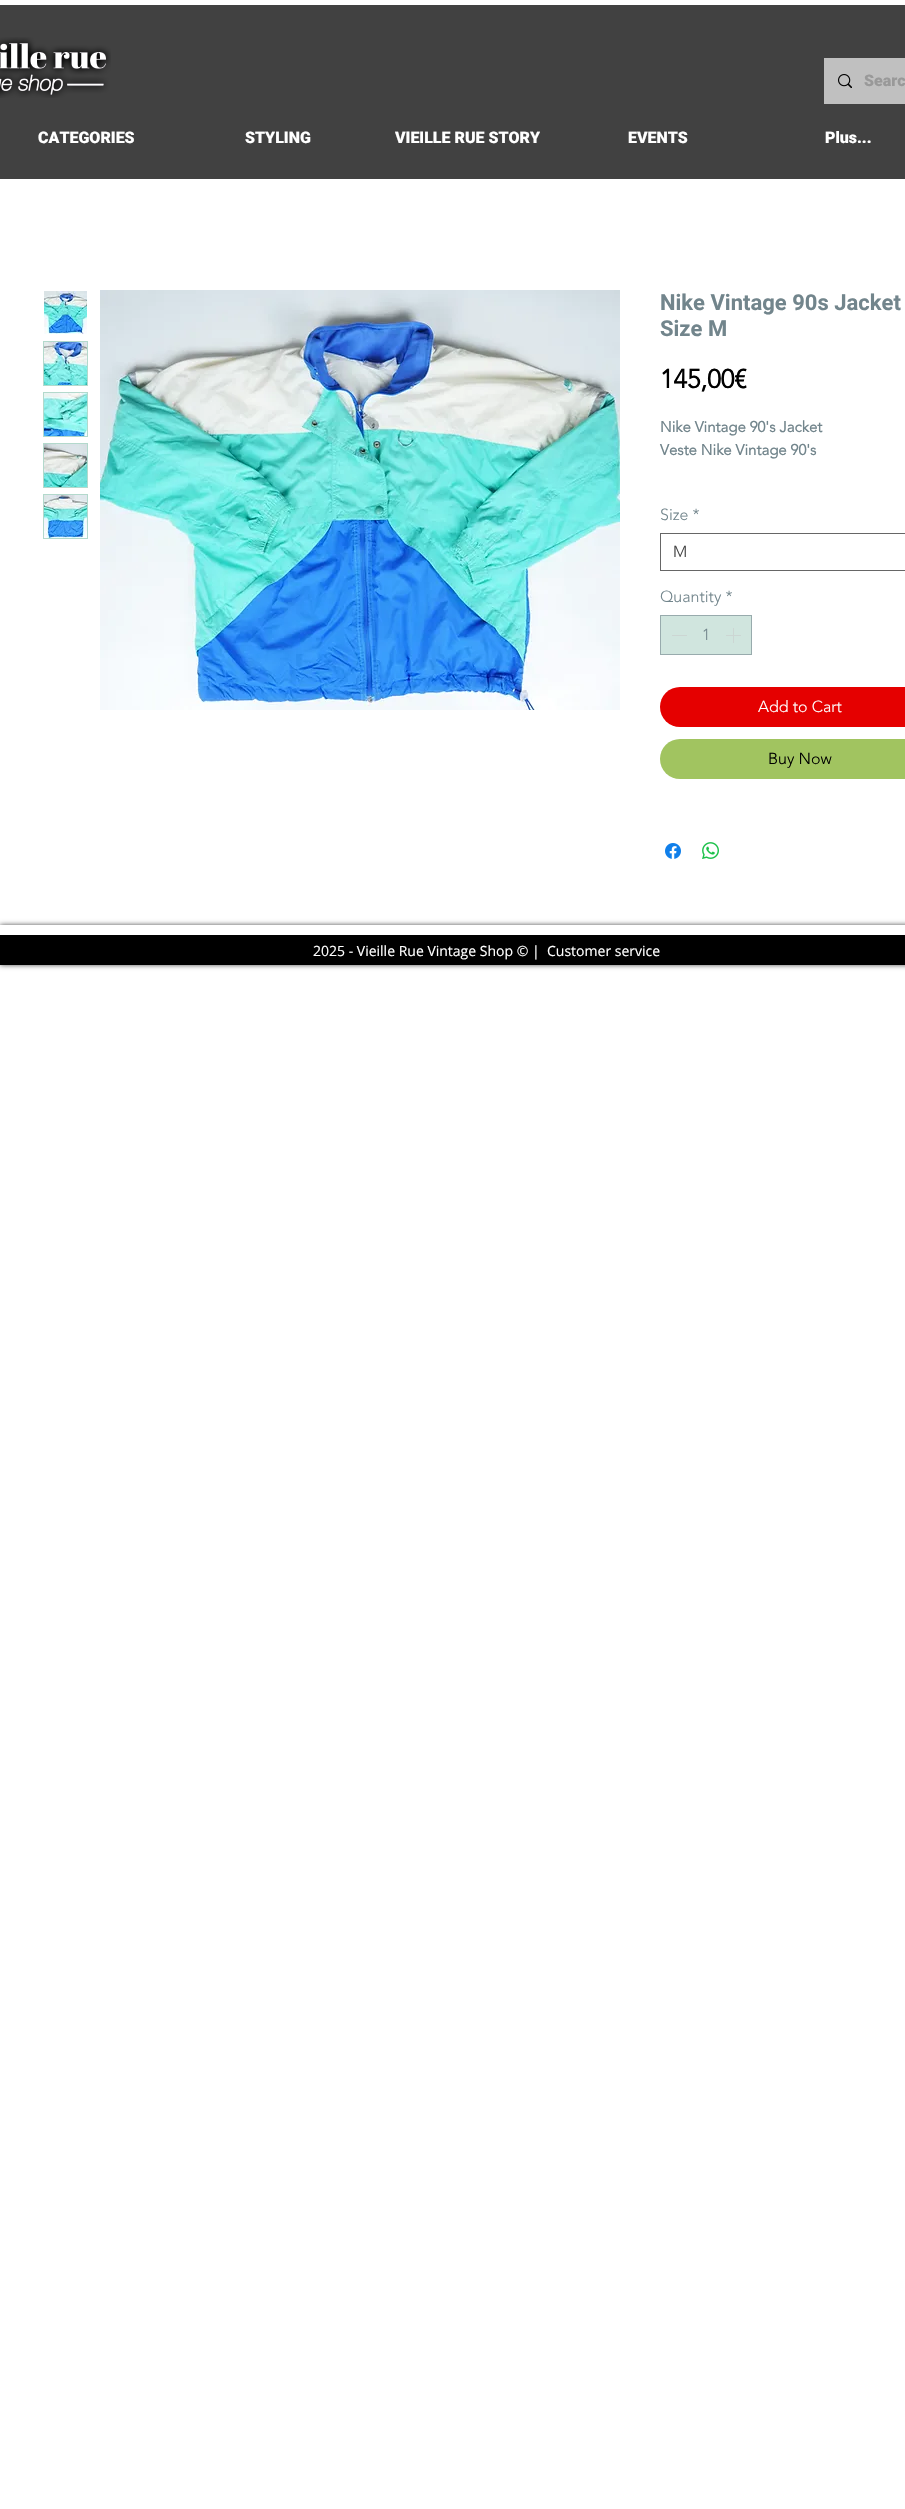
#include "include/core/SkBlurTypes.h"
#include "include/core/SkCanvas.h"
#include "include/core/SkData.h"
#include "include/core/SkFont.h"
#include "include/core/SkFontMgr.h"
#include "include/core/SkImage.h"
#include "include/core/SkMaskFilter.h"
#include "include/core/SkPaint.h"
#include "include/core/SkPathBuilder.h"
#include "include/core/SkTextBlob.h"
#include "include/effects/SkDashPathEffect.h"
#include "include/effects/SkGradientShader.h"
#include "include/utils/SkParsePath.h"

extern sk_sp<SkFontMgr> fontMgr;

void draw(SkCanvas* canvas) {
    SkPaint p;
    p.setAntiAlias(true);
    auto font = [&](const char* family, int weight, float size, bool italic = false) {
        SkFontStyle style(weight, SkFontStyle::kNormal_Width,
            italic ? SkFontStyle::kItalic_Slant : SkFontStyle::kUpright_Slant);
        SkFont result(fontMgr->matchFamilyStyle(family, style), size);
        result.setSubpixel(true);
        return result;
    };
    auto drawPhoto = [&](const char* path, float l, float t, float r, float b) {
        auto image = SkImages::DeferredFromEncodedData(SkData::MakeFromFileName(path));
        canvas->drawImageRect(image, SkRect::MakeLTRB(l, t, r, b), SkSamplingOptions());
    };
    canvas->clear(0xFFFFFFFF);
    p.setColor(0xFF414141);
    canvas->drawRect(SkRect::MakeLTRB(0, 5, 905, 179), p);
    drawPhoto("media/1.png", 0, 37, 111, 98);
    p.setColor(0xFFC0C0C0);
    canvas->drawRect(SkRect::MakeLTRB(824, 58, 905, 104), p);
    drawPhoto("media/2.png", 838, 74, 852, 88);
    auto font1 = font("Roboto", 900, 16);
    p.setColor(0xFF999999);
    canvas->drawString("Searc", 864, 86, font1, p);
    p.setColor(0xFFFFFFFF);
    {
        const struct { const char* s; float x, y; } items[] = {
            {"CATEGORIES", 38, 143},
            {"STYLING", 245, 143},
            {"VIEILLE RUE STORY", 395, 143},
            {"EVENTS", 628, 143},
            {"Plus...", 825, 143},
        };
        for (auto [s, x, y] : items) {
            canvas->drawString(s, x, y, font1, p);
        }
    }
    drawPhoto("media/3.png", 44, 291, 87, 334);
    p.setColor(0xFFB3D9CC);
    canvas->drawRect(SkRect::MakeLTRB(43, 341, 88, 386), p);
    drawPhoto("media/4.png", 44, 342, 87, 385);
    canvas->drawRect(SkRect::MakeLTRB(43, 392, 88, 437), p);
    drawPhoto("media/5.png", 44, 393, 87, 436);
    canvas->drawRect(SkRect::MakeLTRB(43, 443, 88, 488), p);
    drawPhoto("media/6.png", 44, 444, 87, 487);
    canvas->drawRect(SkRect::MakeLTRB(43, 494, 88, 539), p);
    drawPhoto("media/7.png", 44, 495, 87, 538);
    drawPhoto("media/8.png", 100, 290, 620, 710);
    auto font2 = font("Roboto", 700, 22);
    p.setColor(0xFF72858C);
    canvas->drawString("Nike Vintage 90s Jacket", 660, 310, font2, p);
    canvas->drawString("Size M", 660, 336, font2, p);
    auto font3 = font("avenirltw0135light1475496", 700, 26);
    p.setColor(0xFF000000);
    canvas->drawString("145,00€", 660, 388, font3, p);
    auto font4 = font("avenirltw0135light1475496", 700, 15);
    p.setColor(0xFF72858C);
    canvas->drawString("Nike Vintage 90's Jacket", 660, 432, font4, p);
    canvas->drawString("Veste Nike Vintage 90's", 660, 455, font4, p);
    auto font5 = font("avenirltw0135light1475496", 300, 16);
    canvas->drawString("Size *", 660, 520, font5, p);
    p.setStyle(SkPaint::kStroke_Style);
    p.setStrokeWidth(1);
    p.setColor(0xFF666666);
    canvas->drawRect(SkRect::MakeLTRB(660.5f, 533.5f, 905.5f, 570.5f), p);
    p.setStyle(SkPaint::kFill_Style);
    p.setColor(0xFF444444);
    canvas->drawString("M", 673, 557, font5, p);
    p.setColor(0xFF72858C);
    canvas->drawString("Quantity *", 660, 602, font5, p);
    p.setColor(0xFFD0E5DE);
    canvas->drawRect(SkRect::MakeLTRB(660.5f, 615.5f, 751.5f, 654.5f), p);
    p.setStyle(SkPaint::kStroke_Style);
    p.setColor(0xFF98ABAD);
    canvas->drawRect(SkRect::MakeLTRB(660.5f, 615.5f, 751.5f, 654.5f), p);
    p.setStyle(SkPaint::kFill_Style);
    p.setColor(0xFFCCD6D3);
    canvas->drawRect(SkRect::MakeLTRB(672, 635, 687, 636), p);
    p.setColor(0xFF72858C);
    canvas->drawString("1", 702, 640, font5, p);
    drawPhoto("media/9.png", 726, 628, 741, 643);
    p.setColor(0xFFE50000);
    canvas->drawRoundRect(SkRect::MakeLTRB(660, 687, 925, 727), 20, 20, p);
    p.setColor(0xFFFFFFFF);
    canvas->drawString("Add to Cart", 758, 712, font5, p);
    p.setColor(0xFFA1C460);
    canvas->drawRoundRect(SkRect::MakeLTRB(660, 739, 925, 779), 20, 20, p);
    p.setColor(0xFF000000);
    canvas->drawString("Buy Now", 768, 764, font5, p);
    drawPhoto("media/10.png", 665, 843, 681, 859);
    drawPhoto("media/11.png", 702, 842, 719, 859);
    canvas->save();
    canvas->clipPath(SkPathBuilder(SkPathFillType::kEvenOdd).moveTo(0, 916).lineTo(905, 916).lineTo(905, 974).lineTo(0, 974).close().moveTo(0, 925).lineTo(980, 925).lineTo(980, 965).lineTo(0, 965).close().detach(), true);
    p.setColor(0xB3000000);
    p.setMaskFilter(SkMaskFilter::MakeBlur(kNormal_SkBlurStyle, 2.5f));
    canvas->drawRect(SkRect::MakeLTRB(0, 925, 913, 965), p);
    p.setMaskFilter(nullptr);
    canvas->restore();
    p.setColor(0xFF000000);
    canvas->drawRect(SkRect::MakeLTRB(0, 935, 905, 965), p);
    auto font6 = font("Open Sans", 400, 14);
    p.setColor(0xFFFFFFFF);
    canvas->drawString("2025 - Vieille Rue Vintage Shop © |", 313, 956, font6, p);
    canvas->drawString("Customer service", 547, 956, font6, p);
}
